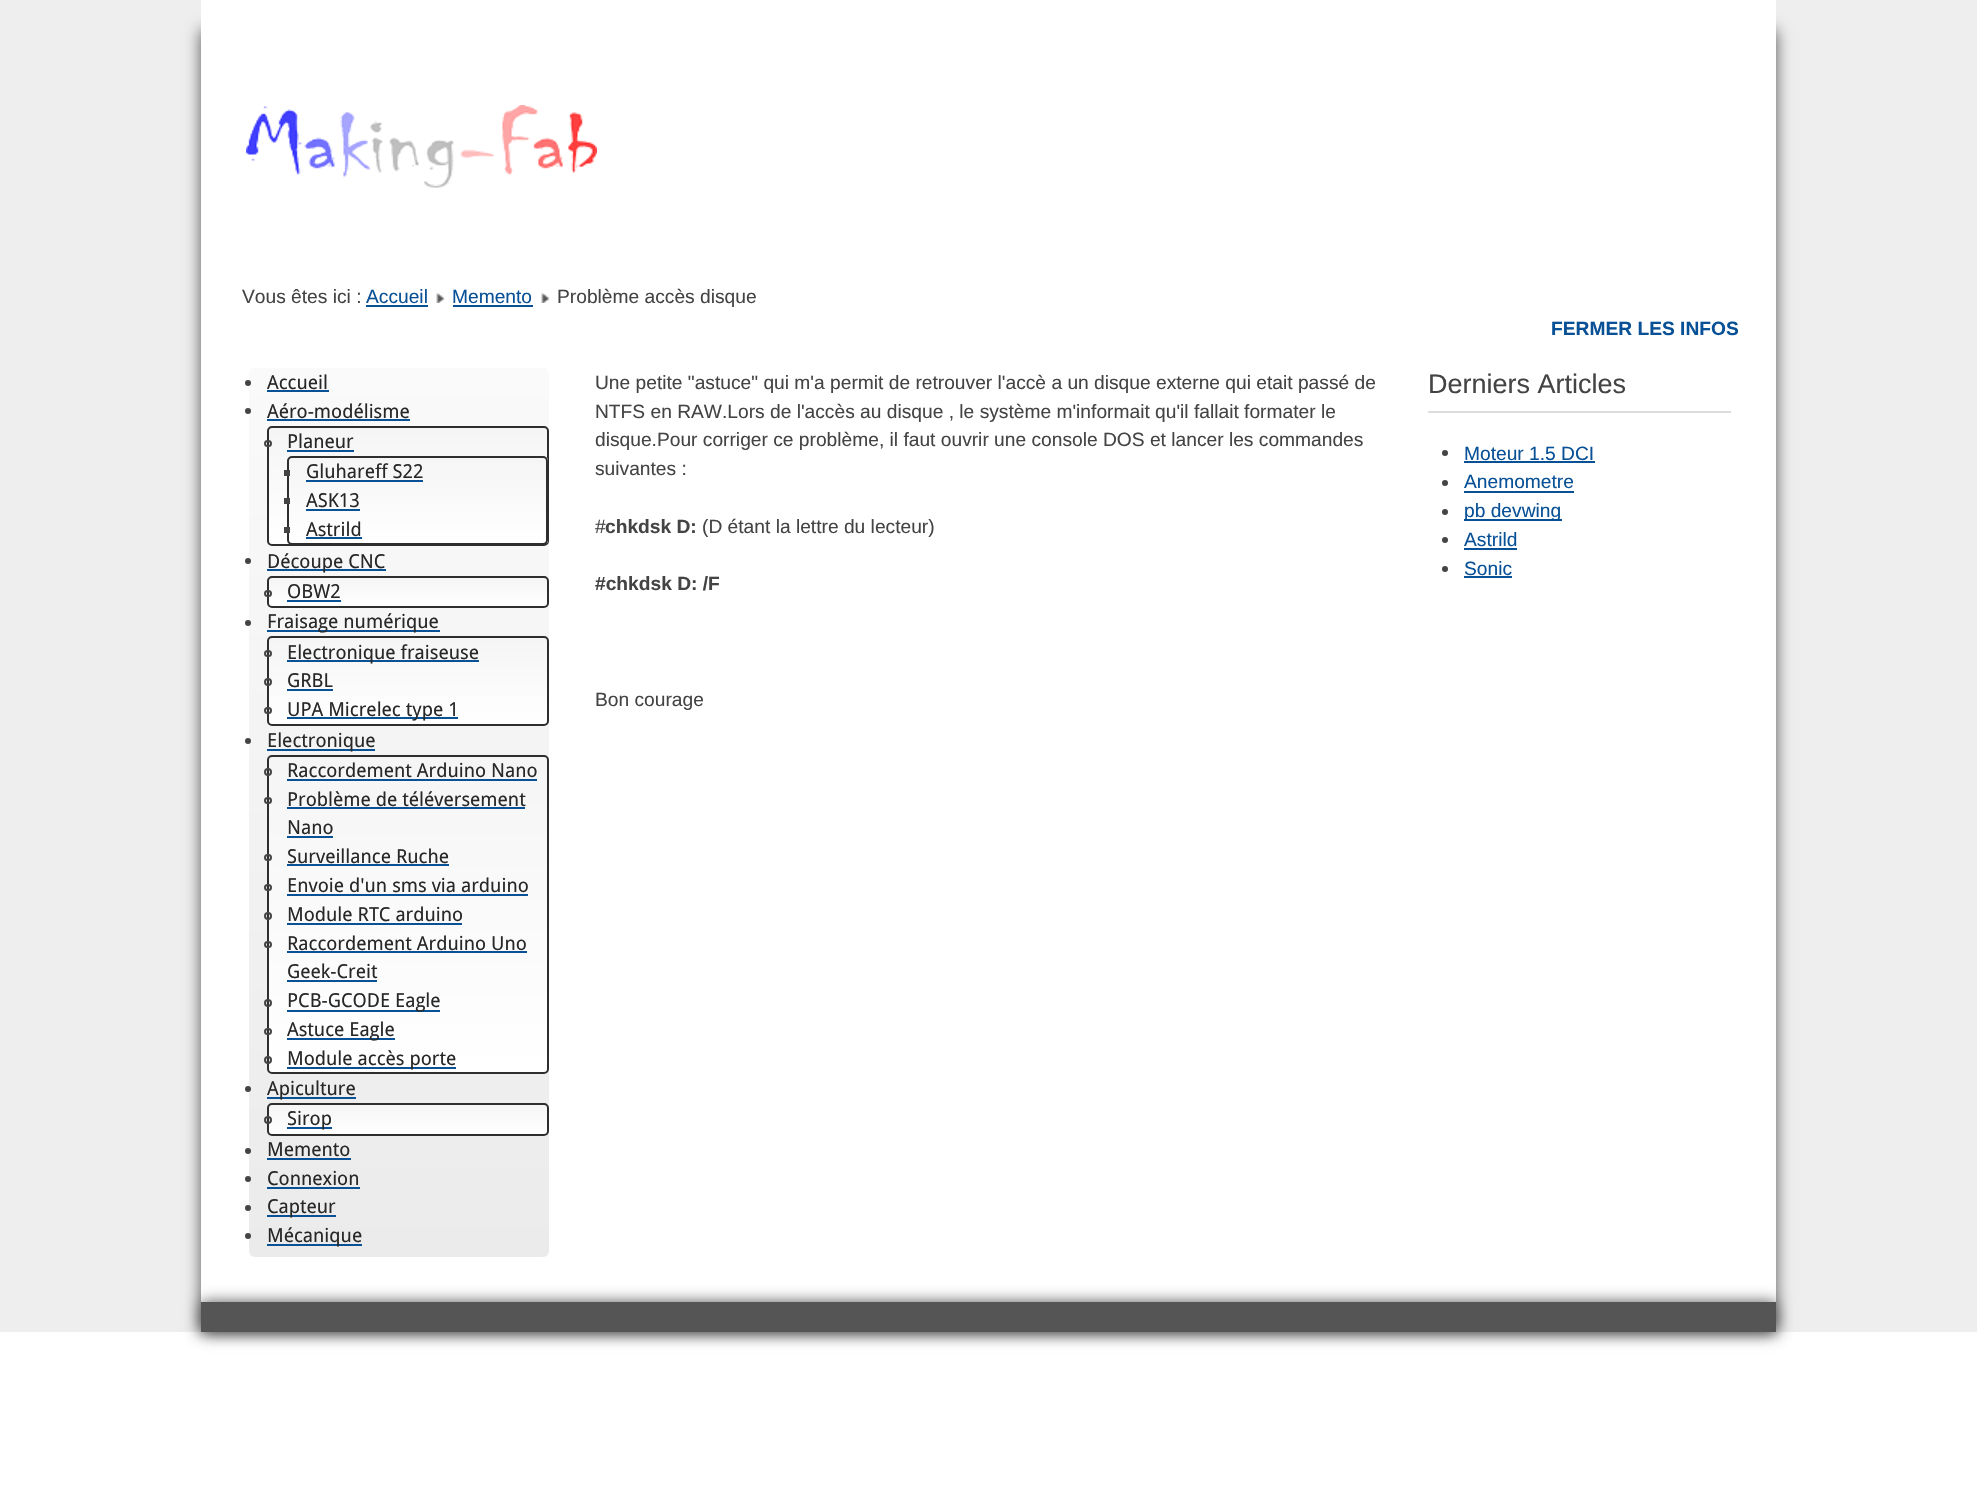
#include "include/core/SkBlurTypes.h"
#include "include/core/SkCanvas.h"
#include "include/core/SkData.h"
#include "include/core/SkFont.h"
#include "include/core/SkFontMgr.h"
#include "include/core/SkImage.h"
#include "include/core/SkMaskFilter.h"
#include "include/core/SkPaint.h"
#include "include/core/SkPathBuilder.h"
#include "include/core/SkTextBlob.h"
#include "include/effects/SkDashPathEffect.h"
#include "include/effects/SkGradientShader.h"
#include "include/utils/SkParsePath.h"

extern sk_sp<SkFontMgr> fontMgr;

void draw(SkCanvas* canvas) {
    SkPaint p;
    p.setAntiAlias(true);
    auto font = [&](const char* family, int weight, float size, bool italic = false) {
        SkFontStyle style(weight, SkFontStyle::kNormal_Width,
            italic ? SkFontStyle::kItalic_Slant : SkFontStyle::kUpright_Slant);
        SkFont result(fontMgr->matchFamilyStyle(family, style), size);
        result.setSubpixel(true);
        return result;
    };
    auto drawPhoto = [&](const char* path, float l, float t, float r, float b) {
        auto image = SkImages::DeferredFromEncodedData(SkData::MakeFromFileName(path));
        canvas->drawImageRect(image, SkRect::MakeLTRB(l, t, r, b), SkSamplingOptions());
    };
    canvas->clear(0xFFFFFFFF);
    p.setColor(0xFFEEEEEE);
    canvas->drawRect(SkRect::MakeLTRB(0, 0, 1977, 1332), p);
    p.setColor(0xFF555555);
    p.setMaskFilter(SkMaskFilter::MakeBlur(kNormal_SkBlurStyle, 7.5f));
    canvas->drawRect(SkRect::MakeLTRB(201, 30, 1776, 1332), p);
    p.setMaskFilter(nullptr);
    p.setColor(0xFFFFFFFF);
    canvas->drawRect(SkRect::MakeLTRB(201, 0, 1776, 1302), p);
    drawPhoto("media/1.png", 246, 105, 597, 188);
    auto font1 = font("Liberation Sans", 400, 19.2f);
    p.setColor(0xFF444444);
    canvas->drawString("Vous êtes ici :", 242, 303, font1, p);
    p.setColor(0xFF095197);
    canvas->drawString("Accueil", 366, 303, font1, p);
    canvas->drawRect(SkRect::MakeLTRB(366, 305, 428, 307), p);
    drawPhoto("media/2.png", 436, 292, 445, 303);
    canvas->drawString("Memento", 452, 303, font1, p);
    canvas->drawRect(SkRect::MakeLTRB(453, 305, 533, 307), p);
    drawPhoto("media/2.png", 541, 292, 550, 303);
    p.setColor(0xFF444444);
    canvas->drawString("Problème accès disque", 557, 303, font1, p);
    auto font2 = font("Liberation Sans", 700, 19.2f);
    p.setColor(0xFF095197);
    canvas->drawString("FERMER LES INFOS", 1551, 335, font2, p);
    {
        const SkColor colors[] = {0xFFFAFAFA, 0xFFEBEBEB};
        const float stops[] = {0, 1};
        const SkPoint ends[] = {{399, 368}, {399, 1257}};
        p.setShader(SkGradientShader::MakeLinear(ends, colors, stops, 2, SkTileMode::kClamp));
        p.setAlpha(255);
    }
    canvas->drawRoundRect(SkRect::MakeLTRB(249, 368, 549, 1257), 6, 6, p);
    p.setShader(nullptr);
    p.setColor(0xFF444444);
    canvas->drawCircle(248, 383, 3, p);
    auto font3 = font("Droid Sans", 400, 19.2f);
    p.setColor(0xFF292829);
    canvas->drawString("Accueil", 267, 389, font3, p);
    p.setColor(0xFF095197);
    canvas->drawRect(SkRect::MakeLTRB(267, 390, 329, 392), p);
    p.setColor(0xFF444444);
    canvas->drawCircle(248, 411, 3, p);
    p.setColor(0xFF292829);
    canvas->drawString("Aéro-modélisme", 267, 418, font3, p);
    p.setColor(0xFF095197);
    canvas->drawRect(SkRect::MakeLTRB(267, 419, 410, 421), p);
    canvas->save();
    canvas->clipPath(SkPathBuilder().moveTo(272, 426).lineTo(544, 426).cubicTo(547, 426, 549, 428, 549, 431).lineTo(549, 541).cubicTo(549, 544, 547, 546, 544, 546).lineTo(272, 546).cubicTo(269, 546, 267, 544, 267, 541).lineTo(267, 431).cubicTo(267, 428, 269, 426, 272, 426).close().detach(), true);
    {
        const SkColor colors[] = {0xFFF5F5F5, 0xFFFFFFFF};
        const float stops[] = {0, 1};
        const SkPoint ends[] = {{408, 428}, {408, 545}};
        p.setShader(SkGradientShader::MakeLinear(ends, colors, stops, 2, SkTileMode::kClamp));
        p.setAlpha(255);
    }
    canvas->drawRect(SkRect::MakeLTRB(267, 428, 549, 545), p);
    canvas->restore();
    p.setStyle(SkPaint::kStroke_Style);
    p.setStrokeWidth(2);
    p.setShader(nullptr);
    p.setColor(0xFF2E2E2E);
    canvas->drawRoundRect(SkRect::MakeLTRB(268, 427, 548, 545), 4, 4, p);
    p.setColor(0xFF444444);
    canvas->drawRoundRect(SkRect::MakeLTRB(265, 441, 271, 446), 2.5f, 2.5f, p);
    p.setStyle(SkPaint::kFill_Style);
    p.setColor(0xFF292829);
    canvas->drawString("Planeur", 287, 448, font3, p);
    p.setColor(0xFF095197);
    canvas->drawRect(SkRect::MakeLTRB(287, 450, 354, 452), p);
    canvas->save();
    canvas->clipPath(SkPathBuilder().moveTo(292, 456).lineTo(543, 456).cubicTo(546, 456, 548, 458, 548, 461).lineTo(548, 540).cubicTo(548, 543, 546, 545, 543, 545).lineTo(292, 545).cubicTo(289, 545, 287, 543, 287, 540).lineTo(287, 461).cubicTo(287, 458, 289, 456, 292, 456).close().detach(), true);
    {
        const SkColor colors[] = {0xFFF5F5F5, 0xFFFFFFFF};
        const float stops[] = {0, 1};
        const SkPoint ends[] = {{417, 458}, {417, 543}};
        p.setShader(SkGradientShader::MakeLinear(ends, colors, stops, 2, SkTileMode::kClamp));
        p.setAlpha(255);
    }
    canvas->drawRect(SkRect::MakeLTRB(287, 458, 548, 543), p);
    canvas->restore();
    p.setStyle(SkPaint::kStroke_Style);
    p.setShader(nullptr);
    p.setColor(0xFF2E2E2E);
    canvas->drawRoundRect(SkRect::MakeLTRB(288, 457, 547, 544), 4, 4, p);
    p.setStyle(SkPaint::kFill_Style);
    p.setColor(0xFF444444);
    canvas->drawRect(SkRect::MakeLTRB(284, 470, 290, 476), p);
    p.setColor(0xFF292829);
    canvas->drawString("Gluhareff S22", 306, 478, font3, p);
    p.setColor(0xFF095197);
    canvas->drawRect(SkRect::MakeLTRB(306, 480, 423, 482), p);
    p.setColor(0xFF444444);
    canvas->drawRect(SkRect::MakeLTRB(284, 498, 290, 504), p);
    p.setColor(0xFF292829);
    canvas->drawString("ASK13", 306, 507, font3, p);
    p.setColor(0xFF095197);
    canvas->drawRect(SkRect::MakeLTRB(306, 509, 360, 511), p);
    p.setColor(0xFF444444);
    canvas->drawRect(SkRect::MakeLTRB(284, 527, 290, 533), p);
    p.setColor(0xFF292829);
    canvas->drawString("Astrild", 306, 536, font3, p);
    p.setColor(0xFF095197);
    canvas->drawRect(SkRect::MakeLTRB(306, 537, 362, 539), p);
    p.setColor(0xFF444444);
    canvas->drawCircle(248, 561, 3, p);
    p.setColor(0xFF095197);
    canvas->drawRect(SkRect::MakeLTRB(267, 569, 386, 571), p);
    p.setColor(0xFF292829);
    canvas->drawString("Découpe CNC", 267, 568, font3, p);
    canvas->save();
    canvas->clipPath(SkPathBuilder().moveTo(272, 576).lineTo(544, 576).cubicTo(547, 576, 549, 578, 549, 581).lineTo(549, 603).cubicTo(549, 606, 547, 608, 544, 608).lineTo(272, 608).cubicTo(269, 608, 267, 606, 267, 603).lineTo(267, 581).cubicTo(267, 578, 269, 576, 272, 576).close().detach(), true);
    {
        const SkColor colors[] = {0xFFF5F5F5, 0xFFFFFFFF};
        const float stops[] = {0, 1};
        const SkPoint ends[] = {{408, 578}, {408, 606}};
        p.setShader(SkGradientShader::MakeLinear(ends, colors, stops, 2, SkTileMode::kClamp));
        p.setAlpha(255);
    }
    canvas->drawRect(SkRect::MakeLTRB(267, 578, 549, 606), p);
    canvas->restore();
    p.setStyle(SkPaint::kStroke_Style);
    p.setShader(nullptr);
    p.setColor(0xFF2E2E2E);
    canvas->drawRoundRect(SkRect::MakeLTRB(268, 577, 548, 607), 4, 4, p);
    p.setColor(0xFF444444);
    canvas->drawRoundRect(SkRect::MakeLTRB(265, 591, 271, 596), 2.5f, 2.5f, p);
    p.setStyle(SkPaint::kFill_Style);
    p.setColor(0xFF292829);
    canvas->drawString("OBW2", 287, 598, font3, p);
    p.setColor(0xFF095197);
    canvas->drawRect(SkRect::MakeLTRB(287, 600, 341, 602), p);
    p.setColor(0xFF444444);
    canvas->drawCircle(248, 623, 3, p);
    p.setColor(0xFF095197);
    canvas->drawRect(SkRect::MakeLTRB(267, 630, 440, 632), p);
    p.setColor(0xFF292829);
    canvas->drawString("Fraisage numérique", 267, 628, font3, p);
    canvas->save();
    canvas->clipPath(SkPathBuilder().moveTo(272, 636).lineTo(544, 636).cubicTo(547, 636, 549, 638, 549, 641).lineTo(549, 721).cubicTo(549, 724, 547, 726, 544, 726).lineTo(272, 726).cubicTo(269, 726, 267, 724, 267, 721).lineTo(267, 641).cubicTo(267, 638, 269, 636, 272, 636).close().detach(), true);
    {
        const SkColor colors[] = {0xFFF5F5F5, 0xFFFFFFFF};
        const float stops[] = {0, 1};
        const SkPoint ends[] = {{408, 638}, {408, 725}};
        p.setShader(SkGradientShader::MakeLinear(ends, colors, stops, 2, SkTileMode::kClamp));
        p.setAlpha(255);
    }
    canvas->drawRect(SkRect::MakeLTRB(267, 638, 549, 725), p);
    canvas->restore();
    p.setStyle(SkPaint::kStroke_Style);
    p.setShader(nullptr);
    p.setColor(0xFF2E2E2E);
    canvas->drawRoundRect(SkRect::MakeLTRB(268, 637, 548, 725), 4, 4, p);
    p.setColor(0xFF444444);
    canvas->drawRoundRect(SkRect::MakeLTRB(265, 651, 271, 656), 2.5f, 2.5f, p);
    p.setStyle(SkPaint::kFill_Style);
    p.setColor(0xFF095197);
    canvas->drawRect(SkRect::MakeLTRB(287, 660, 479, 662), p);
    p.setColor(0xFF292829);
    canvas->drawString("Electronique fraiseuse", 287, 659, font3, p);
    p.setStyle(SkPaint::kStroke_Style);
    p.setColor(0xFF444444);
    canvas->drawCircle(268, 682, 3, p);
    p.setStyle(SkPaint::kFill_Style);
    p.setColor(0xFF292829);
    canvas->drawString("GRBL", 287, 687, font3, p);
    p.setColor(0xFF095197);
    canvas->drawRect(SkRect::MakeLTRB(287, 689, 333, 691), p);
    p.setStyle(SkPaint::kStroke_Style);
    p.setColor(0xFF444444);
    canvas->drawRoundRect(SkRect::MakeLTRB(265, 708, 271, 713), 2.5f, 2.5f, p);
    p.setStyle(SkPaint::kFill_Style);
    p.setColor(0xFF095197);
    canvas->drawRect(SkRect::MakeLTRB(287, 717, 458, 719), p);
    p.setColor(0xFF292829);
    canvas->drawString("UPA Micrelec type 1", 287, 716, font3, p);
    p.setColor(0xFF444444);
    canvas->drawCircle(248, 741, 3, p);
    p.setColor(0xFF095197);
    canvas->drawRect(SkRect::MakeLTRB(267, 749, 375, 751), p);
    p.setColor(0xFF292829);
    canvas->drawString("Electronique", 267, 747, font3, p);
    canvas->save();
    canvas->clipPath(SkPathBuilder().moveTo(272, 755).lineTo(544, 755).cubicTo(547, 755, 549, 757, 549, 760).lineTo(549, 1069).cubicTo(549, 1072, 547, 1074, 544, 1074).lineTo(272, 1074).cubicTo(269, 1074, 267, 1072, 267, 1069).lineTo(267, 760).cubicTo(267, 757, 269, 755, 272, 755).close().detach(), true);
    {
        const SkColor colors[] = {0xFFF5F5F5, 0xFFFFFFFF};
        const float stops[] = {0, 1};
        const SkPoint ends[] = {{408, 756}, {408, 1073}};
        p.setShader(SkGradientShader::MakeLinear(ends, colors, stops, 2, SkTileMode::kClamp));
        p.setAlpha(255);
    }
    canvas->drawRect(SkRect::MakeLTRB(267, 756, 549, 1073), p);
    canvas->restore();
    p.setStyle(SkPaint::kStroke_Style);
    p.setShader(nullptr);
    p.setColor(0xFF2E2E2E);
    canvas->drawRoundRect(SkRect::MakeLTRB(268, 756, 548, 1073), 4, 4, p);
    p.setColor(0xFF444444);
    canvas->drawCircle(268, 772, 3, p);
    p.setStyle(SkPaint::kFill_Style);
    p.setColor(0xFF292829);
    canvas->drawString("Raccordement Arduino Nano", 287, 777, font3, p);
    p.setColor(0xFF095197);
    canvas->drawRect(SkRect::MakeLTRB(287, 779, 537, 781), p);
    p.setStyle(SkPaint::kStroke_Style);
    p.setColor(0xFF444444);
    canvas->drawRoundRect(SkRect::MakeLTRB(265, 798, 271, 803), 2.5f, 2.5f, p);
    p.setStyle(SkPaint::kFill_Style);
    p.setColor(0xFF292829);
    canvas->drawString("Problème de téléversement", 287, 806, font3, p);
    p.setColor(0xFF095197);
    canvas->drawRect(SkRect::MakeLTRB(287, 807, 525, 809), p);
    p.setColor(0xFF292829);
    canvas->drawString("Nano", 287, 834, font3, p);
    p.setColor(0xFF095197);
    canvas->drawRect(SkRect::MakeLTRB(287, 836, 333, 838), p);
    p.setStyle(SkPaint::kStroke_Style);
    p.setColor(0xFF444444);
    canvas->drawRoundRect(SkRect::MakeLTRB(265, 855, 271, 860), 2.5f, 2.5f, p);
    p.setStyle(SkPaint::kFill_Style);
    p.setColor(0xFF292829);
    canvas->drawString("Surveillance Ruche", 287, 863, font3, p);
    p.setColor(0xFF095197);
    canvas->drawRect(SkRect::MakeLTRB(287, 864, 449, 866), p);
    p.setStyle(SkPaint::kStroke_Style);
    p.setColor(0xFF444444);
    canvas->drawRoundRect(SkRect::MakeLTRB(265, 885, 271, 890), 2.5f, 2.5f, p);
    p.setStyle(SkPaint::kFill_Style);
    p.setColor(0xFF292829);
    canvas->drawString("Envoie d'un sms via arduino", 287, 892, font3, p);
    p.setColor(0xFF095197);
    canvas->drawRect(SkRect::MakeLTRB(287, 894, 528, 896), p);
    p.setStyle(SkPaint::kStroke_Style);
    p.setColor(0xFF444444);
    canvas->drawCircle(268, 916, 3, p);
    p.setStyle(SkPaint::kFill_Style);
    p.setColor(0xFF292829);
    canvas->drawString("Module RTC arduino", 287, 921, font3, p);
    p.setColor(0xFF095197);
    canvas->drawRect(SkRect::MakeLTRB(287, 923, 462, 925), p);
    p.setStyle(SkPaint::kStroke_Style);
    p.setColor(0xFF444444);
    canvas->drawRoundRect(SkRect::MakeLTRB(265, 942, 271, 947), 2.5f, 2.5f, p);
    p.setStyle(SkPaint::kFill_Style);
    p.setColor(0xFF292829);
    canvas->drawString("Raccordement Arduino Uno", 287, 950, font3, p);
    p.setColor(0xFF095197);
    canvas->drawRect(SkRect::MakeLTRB(287, 951, 527, 953), p);
    p.setColor(0xFF292829);
    canvas->drawString("Geek-Creit", 287, 978, font3, p);
    p.setColor(0xFF095197);
    canvas->drawRect(SkRect::MakeLTRB(287, 980, 377, 982), p);
    p.setStyle(SkPaint::kStroke_Style);
    p.setColor(0xFF444444);
    canvas->drawCircle(268, 1003, 3, p);
    p.setStyle(SkPaint::kFill_Style);
    p.setColor(0xFF095197);
    canvas->drawRect(SkRect::MakeLTRB(287, 1010, 440, 1012), p);
    p.setColor(0xFF292829);
    canvas->drawString("PCB-GCODE Eagle", 287, 1007, font3, p);
    p.setStyle(SkPaint::kStroke_Style);
    p.setColor(0xFF444444);
    canvas->drawRoundRect(SkRect::MakeLTRB(265, 1029, 271, 1034), 2.5f, 2.5f, p);
    p.setStyle(SkPaint::kFill_Style);
    p.setColor(0xFF095197);
    canvas->drawRect(SkRect::MakeLTRB(287, 1038, 395, 1040), p);
    p.setColor(0xFF292829);
    canvas->drawString("Astuce Eagle", 287, 1036, font3, p);
    p.setStyle(SkPaint::kStroke_Style);
    p.setColor(0xFF444444);
    canvas->drawCircle(268, 1060, 3, p);
    p.setStyle(SkPaint::kFill_Style);
    p.setColor(0xFF095197);
    canvas->drawRect(SkRect::MakeLTRB(287, 1067, 456, 1069), p);
    p.setColor(0xFF292829);
    canvas->drawString("Module accès porte", 287, 1065, font3, p);
    p.setColor(0xFF444444);
    canvas->drawCircle(248, 1089, 3, p);
    p.setColor(0xFF095197);
    canvas->drawRect(SkRect::MakeLTRB(267, 1097, 356, 1099), p);
    p.setColor(0xFF292829);
    canvas->drawString("Apiculture", 267, 1095, font3, p);
    canvas->save();
    canvas->clipPath(SkPathBuilder().moveTo(272, 1103).lineTo(544, 1103).cubicTo(547, 1103, 549, 1105, 549, 1108).lineTo(549, 1131).cubicTo(549, 1134, 547, 1136, 544, 1136).lineTo(272, 1136).cubicTo(269, 1136, 267, 1134, 267, 1131).lineTo(267, 1108).cubicTo(267, 1105, 269, 1103, 272, 1103).close().detach(), true);
    {
        const SkColor colors[] = {0xFFF5F5F5, 0xFFFFFFFF};
        const float stops[] = {0, 1};
        const SkPoint ends[] = {{408, 1104}, {408, 1134}};
        p.setShader(SkGradientShader::MakeLinear(ends, colors, stops, 2, SkTileMode::kClamp));
        p.setAlpha(255);
    }
    canvas->drawRect(SkRect::MakeLTRB(267, 1104, 549, 1134), p);
    canvas->restore();
    p.setStyle(SkPaint::kStroke_Style);
    p.setShader(nullptr);
    p.setColor(0xFF2E2E2E);
    canvas->drawRoundRect(SkRect::MakeLTRB(268, 1104, 548, 1135), 4, 4, p);
    p.setColor(0xFF444444);
    canvas->drawCircle(268, 1120, 3, p);
    p.setStyle(SkPaint::kFill_Style);
    p.setColor(0xFF095197);
    canvas->drawRect(SkRect::MakeLTRB(287, 1127, 332, 1129), p);
    p.setColor(0xFF292829);
    canvas->drawString("Sirop", 287, 1125, font3, p);
    p.setColor(0xFF444444);
    canvas->drawCircle(248, 1151, 3, p);
    p.setColor(0xFF292829);
    canvas->drawString("Memento", 267, 1156, font3, p);
    p.setColor(0xFF095197);
    canvas->drawRect(SkRect::MakeLTRB(267, 1158, 351, 1160), p);
    p.setColor(0xFF444444);
    canvas->drawCircle(248, 1179, 3, p);
    p.setColor(0xFF292829);
    canvas->drawString("Connexion", 267, 1185, font3, p);
    p.setColor(0xFF095197);
    canvas->drawRect(SkRect::MakeLTRB(267, 1187, 360, 1189), p);
    p.setColor(0xFF444444);
    canvas->drawCircle(248, 1208, 3, p);
    p.setColor(0xFF095197);
    canvas->drawRect(SkRect::MakeLTRB(267, 1215, 336, 1217), p);
    p.setColor(0xFF292829);
    canvas->drawString("Capteur", 267, 1213, font3, p);
    p.setColor(0xFF444444);
    canvas->drawCircle(248, 1236, 3, p);
    p.setColor(0xFF095197);
    canvas->drawRect(SkRect::MakeLTRB(267, 1244, 362, 1246), p);
    p.setColor(0xFF292829);
    canvas->drawString("Mécanique", 267, 1242, font3, p);
    p.setColor(0xFF444444);
    {
        const struct { const char* s; float x, y; } items[] = {
            {"Une petite \"astuce\" qui m'a permit de retrouver l'accè a un disque externe qui etait passé de", 595, 389},
            {"NTFS en RAW.Lors de l'accès au disque , le système m'informait qu'il fallait formater le", 595, 418},
            {"disque.Pour corriger ce problème, il faut ouvrir une console DOS et lancer les commandes", 595, 446},
            {"suivantes :", 595, 475},
            {"#", 595, 533},
        };
        for (auto [s, x, y] : items) {
            canvas->drawString(s, x, y, font1, p);
        }
    }
    canvas->drawString("chkdsk D:", 605, 533, font2, p);
    canvas->drawString("(D étant la lettre du lecteur)", 702, 533, font1, p);
    canvas->drawString("#chkdsk D: /F", 595, 590, font2, p);
    canvas->drawString("Bon courage", 595, 706, font1, p);
    p.setColor(0xFFDDDDDD);
    canvas->drawRect(SkRect::MakeLTRB(1428, 411, 1731, 413), p);
    auto font4 = font("Liberation Sans", 400, 27);
    p.setColor(0xFF444444);
    canvas->drawString("Derniers Articles", 1428, 393, font4, p);
    canvas->drawCircle(1445, 453, 3, p);
    p.setColor(0xFF095197);
    canvas->drawString("Moteur 1.5 DCI", 1464, 460, font1, p);
    canvas->drawRect(SkRect::MakeLTRB(1464, 461, 1595, 463), p);
    p.setColor(0xFF444444);
    canvas->drawCircle(1445, 483, 3, p);
    p.setColor(0xFF095197);
    canvas->drawString("Anemometre", 1464, 488, font1, p);
    canvas->drawRect(SkRect::MakeLTRB(1464, 491, 1574, 493), p);
    p.setColor(0xFF444444);
    canvas->drawCircle(1445, 512, 3, p);
    p.setColor(0xFF095197);
    canvas->drawRect(SkRect::MakeLTRB(1464, 519, 1562, 521), p);
    canvas->drawString("pb devwing", 1464, 517, font1, p);
    p.setColor(0xFF444444);
    canvas->drawCircle(1445, 540, 3, p);
    p.setColor(0xFF095197);
    canvas->drawString("Astrild", 1464, 546, font1, p);
    canvas->drawRect(SkRect::MakeLTRB(1464, 548, 1517, 550), p);
    p.setColor(0xFF444444);
    canvas->drawCircle(1445, 569, 3, p);
    p.setColor(0xFF095197);
    canvas->drawString("Sonic", 1464, 575, font1, p);
    canvas->drawRect(SkRect::MakeLTRB(1464, 576, 1512, 578), p);
    p.setColor(0xFF555555);
    p.setMaskFilter(SkMaskFilter::MakeBlur(kNormal_SkBlurStyle, 7.5f));
    canvas->drawRect(SkRect::MakeLTRB(201, 1302, 1776, 1332), p);
    p.setMaskFilter(nullptr);
    canvas->drawRect(SkRect::MakeLTRB(201, 1302, 1776, 1332), p);
}
